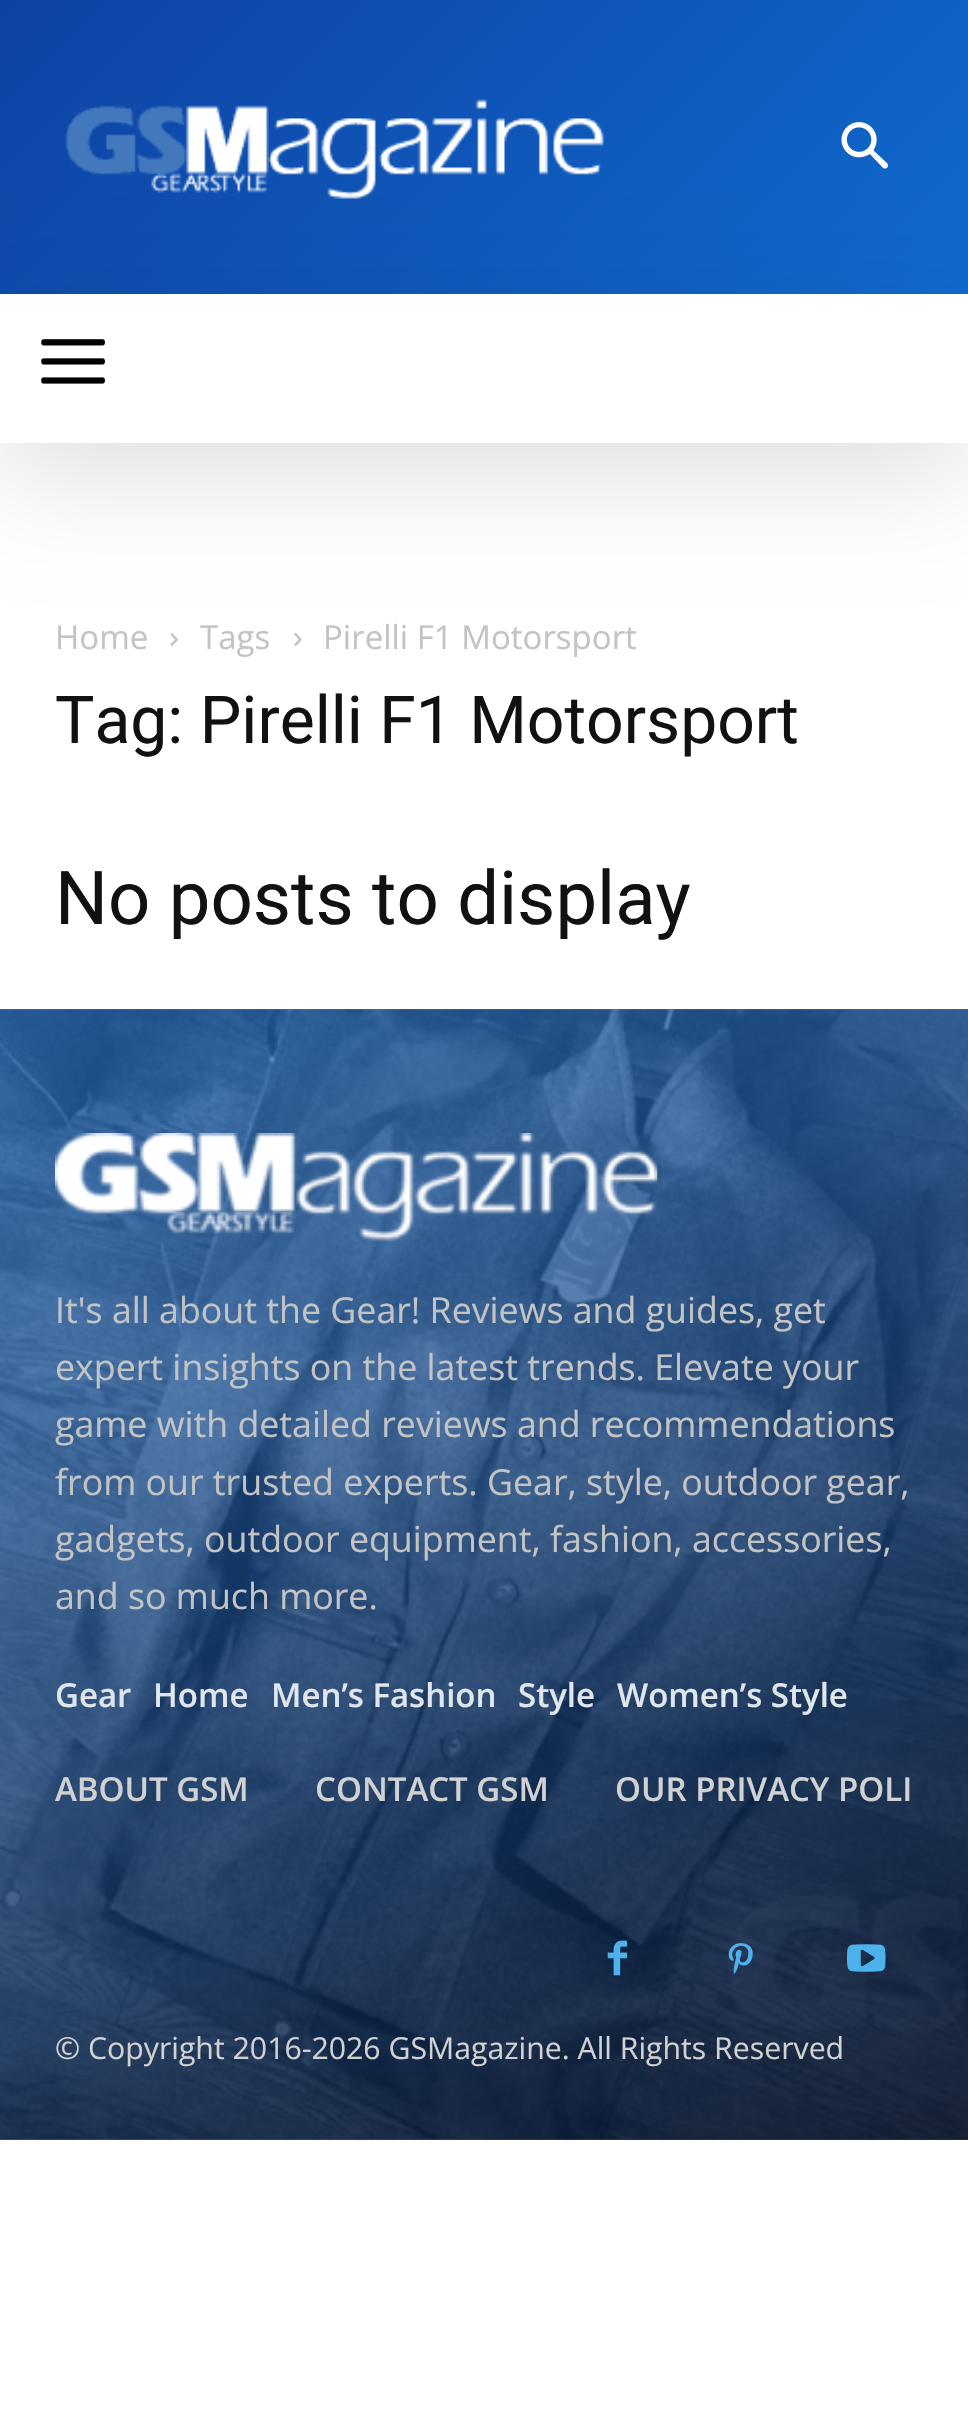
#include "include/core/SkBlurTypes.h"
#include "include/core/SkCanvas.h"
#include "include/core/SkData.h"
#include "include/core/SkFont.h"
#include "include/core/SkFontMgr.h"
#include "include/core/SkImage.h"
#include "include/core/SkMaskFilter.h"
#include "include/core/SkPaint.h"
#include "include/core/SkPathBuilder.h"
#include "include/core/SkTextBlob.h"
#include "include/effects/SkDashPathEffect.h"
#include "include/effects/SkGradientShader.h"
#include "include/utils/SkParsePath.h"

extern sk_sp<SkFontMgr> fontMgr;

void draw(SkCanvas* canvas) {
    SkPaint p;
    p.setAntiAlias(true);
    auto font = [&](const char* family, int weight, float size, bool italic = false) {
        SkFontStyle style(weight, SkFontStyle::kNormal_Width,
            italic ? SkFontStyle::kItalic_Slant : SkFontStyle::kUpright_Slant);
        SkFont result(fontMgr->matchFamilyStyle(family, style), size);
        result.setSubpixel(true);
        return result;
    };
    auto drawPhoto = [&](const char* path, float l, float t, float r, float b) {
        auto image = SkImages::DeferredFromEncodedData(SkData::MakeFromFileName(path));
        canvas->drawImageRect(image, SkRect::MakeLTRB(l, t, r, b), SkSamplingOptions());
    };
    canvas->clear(0xFFFFFFFF);
    {
        const SkColor colors[] = {0xFF116ACE, 0xFF0D42A2};
        const float stops[] = {0, 1};
        const SkPoint ends[] = {{800, 463}, {168, -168}};
        p.setShader(SkGradientShader::MakeLinear(ends, colors, stops, 2, SkTileMode::kClamp));
        p.setAlpha(255);
    }
    canvas->drawRect(SkRect::MakeLTRB(0, 0, 968, 294), p);
    drawPhoto("media/1.png", 65, 99, 604, 199);
    drawPhoto("media/2.png", 841, 122, 889, 169);
    drawPhoto("media/4.png", 170, 633, 178, 646);
    drawPhoto("media/5.png", 294, 633, 302, 646);
    p.setShader(nullptr);
    p.setColor(0x1F000000);
    p.setMaskFilter(SkMaskFilter::MakeBlur(kNormal_SkBlurStyle, 55));
    canvas->drawRect(SkRect::MakeLTRB(0, 327, 968, 476), p);
    p.setMaskFilter(nullptr);
    p.setColor(0xFFFFFFFF);
    canvas->drawRect(SkRect::MakeLTRB(0, 294, 968, 443), p);
    drawPhoto("media/3.png", 41, 339, 105, 384);
    auto font1 = font("Open Sans", 400, 33);
    p.setColor(0xFFC3C3C3);
    {
        const struct { const char* s; float x, y; } items[] = {
            {"Home", 55, 649},
            {"Tags", 200, 649},
            {"Pirelli F1 Motorsport", 323, 649},
        };
        for (auto [s, x, y] : items) {
            canvas->drawString(s, x, y, font1, p);
        }
    }
    auto font2 = font("Roboto", 400, 66);
    p.setColor(0xFF111111);
    canvas->drawString("Tag: Pirelli F1 Motorsport", 55, 743, font2, p);
    auto font3 = font("Roboto", 400, 74.25f);
    canvas->drawString("No posts to display", 55, 924, font3, p);
    drawPhoto("media/6.png", 0, 1009, 968, 2140);
    drawPhoto("media/7.png", 0, 1009, 968, 2140);
    {
        const SkColor colors[] = {0xAB2976CE, 0xDB000B23};
        const float stops[] = {0, 1};
        const SkPoint ends[] = {{220, 920}, {748, 2228}};
        p.setShader(SkGradientShader::MakeLinear(ends, colors, stops, 2, SkTileMode::kClamp));
        p.setAlpha(255);
    }
    canvas->drawRect(SkRect::MakeLTRB(0, 1009, 968, 2140), p);
    drawPhoto("media/8.png", 55, 1133, 658, 1242);
    auto font4 = font("Open Sans", 400, 35.75f);
    p.setShader(nullptr);
    p.setColor(0xFFC3C3C3);
    {
        const struct { const char* s; float x, y; } items[] = {
            {"It's all about the Gear! Reviews and guides, get", 55, 1323},
            {"expert insights on the latest trends. Elevate your", 55, 1380},
            {"game with detailed reviews and recommendations", 55, 1437},
            {"from our trusted experts. Gear, style, outdoor gear,", 55, 1495},
            {"gadgets, outdoor equipment, fashion, accessories,", 55, 1552},
            {"and so much more.", 55, 1609},
        };
        for (auto [s, x, y] : items) {
            canvas->drawString(s, x, y, font4, p);
        }
    }
    auto font5 = font("Open Sans", 600, 33);
    p.setColor(0xFFE0E6EC);
    {
        const struct { const char* s; float x, y; } items[] = {
            {"Gear", 55, 1707},
            {"Home", 153, 1707},
            {"Men’s Fashion", 271, 1707},
            {"Style", 518, 1707},
            {"Women’s Style", 617, 1707},
        };
        for (auto [s, x, y] : items) {
            canvas->drawString(s, x, y, font5, p);
        }
    }
    p.setColor(0xFFD1D1D1);
    {
        const struct { const char* s; float x, y; } items[] = {
            {"ABOUT GSM", 55, 1801},
            {"CONTACT GSM", 315, 1801},
            {"OUR PRIVACY POLI", 615, 1801},
        };
        for (auto [s, x, y] : items) {
            canvas->drawString(s, x, y, font5, p);
        }
    }
    drawPhoto("media/9.png", 607, 1940, 627, 1976);
    drawPhoto("media/10.png", 728, 1943, 753, 1974);
    drawPhoto("media/11.png", 847, 1944, 886, 1972);
    auto font6 = font("Open Sans", 400, 30.25f);
    canvas->drawString("© Copyright 2016-2026 GSMagazine. All Rights Reserved", 55, 2059, font6, p);
}
